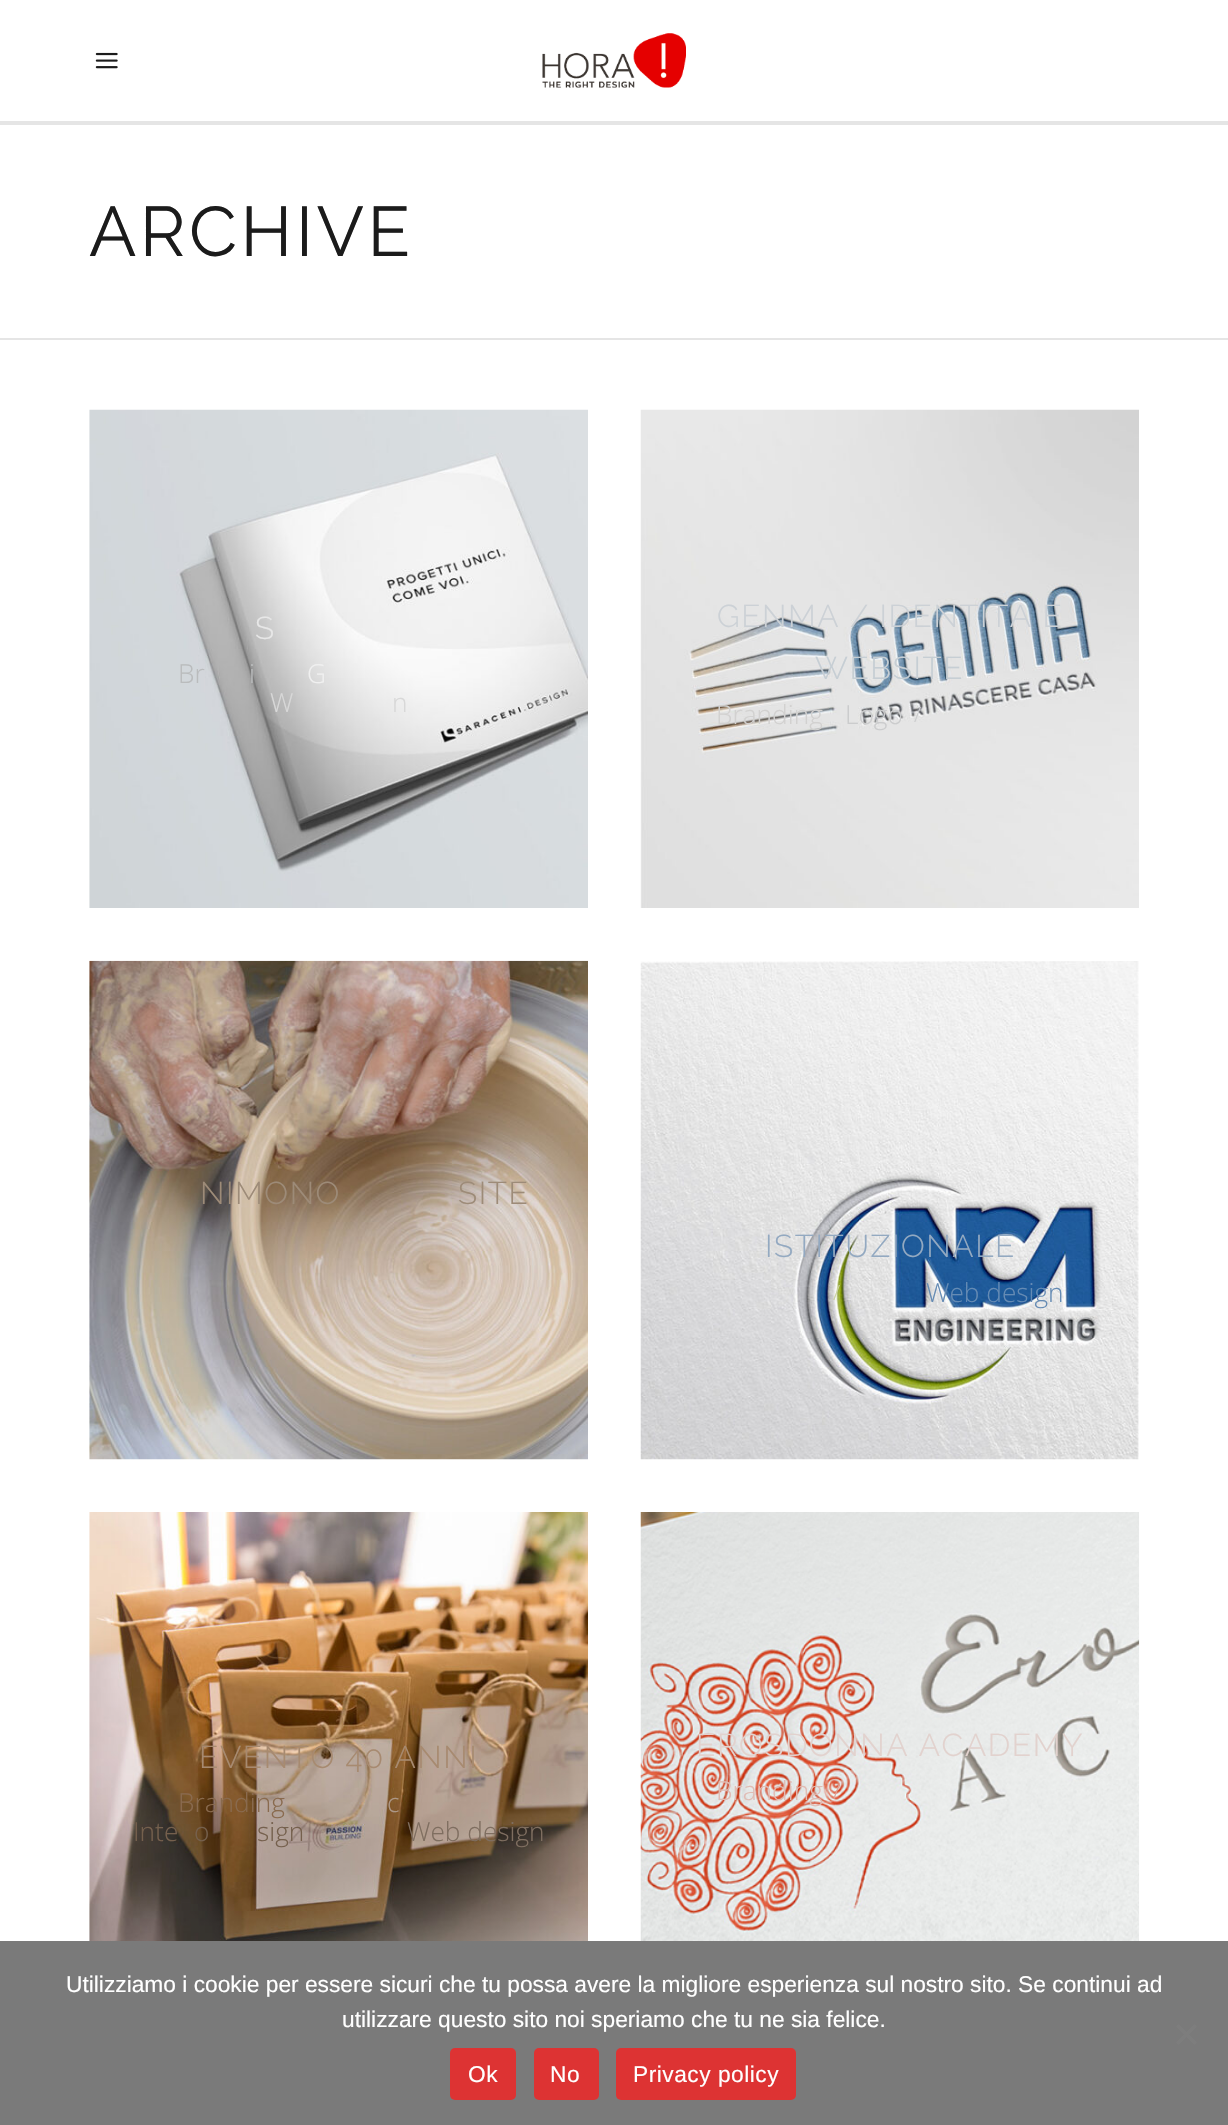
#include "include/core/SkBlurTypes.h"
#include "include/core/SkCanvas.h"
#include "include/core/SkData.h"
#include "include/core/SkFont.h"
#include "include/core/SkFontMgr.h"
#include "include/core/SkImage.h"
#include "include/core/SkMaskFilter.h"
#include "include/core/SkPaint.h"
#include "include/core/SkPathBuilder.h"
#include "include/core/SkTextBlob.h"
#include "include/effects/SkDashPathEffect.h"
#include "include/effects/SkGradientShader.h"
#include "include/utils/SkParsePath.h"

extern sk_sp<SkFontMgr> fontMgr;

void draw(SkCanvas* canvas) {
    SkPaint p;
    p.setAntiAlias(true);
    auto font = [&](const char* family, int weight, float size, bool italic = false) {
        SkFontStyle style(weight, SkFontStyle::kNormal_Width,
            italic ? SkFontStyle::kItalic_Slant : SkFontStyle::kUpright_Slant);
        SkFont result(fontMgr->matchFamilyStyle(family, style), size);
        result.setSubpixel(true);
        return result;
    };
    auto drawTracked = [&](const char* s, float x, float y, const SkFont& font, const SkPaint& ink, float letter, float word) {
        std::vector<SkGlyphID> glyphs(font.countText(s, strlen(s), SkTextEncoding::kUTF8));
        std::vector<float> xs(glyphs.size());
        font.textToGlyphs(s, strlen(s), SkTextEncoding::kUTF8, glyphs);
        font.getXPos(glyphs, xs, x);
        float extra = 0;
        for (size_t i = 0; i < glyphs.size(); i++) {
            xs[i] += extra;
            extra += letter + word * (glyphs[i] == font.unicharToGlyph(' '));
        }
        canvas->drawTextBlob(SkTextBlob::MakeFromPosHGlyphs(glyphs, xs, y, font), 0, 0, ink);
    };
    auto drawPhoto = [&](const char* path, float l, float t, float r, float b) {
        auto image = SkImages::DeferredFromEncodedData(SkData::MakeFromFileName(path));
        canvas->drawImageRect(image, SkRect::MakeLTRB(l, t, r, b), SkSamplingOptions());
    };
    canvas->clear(0xFFFFFFFF);
    drawPhoto("media/1.png", 95, 52, 118, 69);
    drawPhoto("media/2.png", 542, 33, 686, 88);
    p.setColor(0xFFE5E5E5);
    canvas->drawRect(SkRect::MakeLTRB(0, 121, 1228, 125), p);
    canvas->drawRect(SkRect::MakeLTRB(0, 338, 1228, 340), p);
    auto font1 = font("Raleway", 400, 70);
    p.setColor(0xFF1B1B1B);
    drawTracked("ARCHIVE", 89, 256, font1, p, 3.5f, 0);
    drawPhoto("media/3.png", 89, 409, 588, 908);
    auto font2 = font("Raleway", 300, 31.5f);
    p.setColor(0xFFE7E7E7);
    drawTracked("S", 255, 639, font2, p, 1.6f, 0);
    auto font3 = font("Open Sans", 300, 26.25f);
    p.setColor(0xFFBABCBD);
    canvas->drawString("Br", 178, 683, font3, p);
    canvas->drawString("i", 249, 683, font3, p);
    p.setColor(0xFFF0F0F0);
    canvas->drawString("G", 307, 683, font3, p);
    p.setColor(0xFFD8D8D8);
    canvas->drawString("W", 270, 712, font3, p);
    canvas->drawString("n", 392, 712, font3, p);
    drawPhoto("media/4.png", 640, 409, 1139, 908);
    p.setColor(0xFFCCD1D6);
    drawTracked("GENMA / IDENTITÀ E", 717, 627, font2, p, 1.6f, 0);
    p.setColor(0xFFC6CED4);
    drawTracked("WEBSITE", 815, 679, font2, p, 1.6f, 0);
    p.setColor(0xFFD2D1D0);
    canvas->drawString("Branding", 716, 724, font3, p);
    p.setColor(0xFFCBCCCD);
    canvas->drawString("Logo", 845, 724, font3, p);
    auto font4 = font("Open Sans", 300, 21);
    canvas->drawString("/", 914, 722, font4, p);
    drawPhoto("media/5.png", 89, 960, 588, 1460);
    p.setColor(0xFF9D8B78);
    drawTracked("NIMONO", 200, 1204, font2, p, 1.6f, 0);
    drawTracked("SITE", 458, 1204, font2, p, 1.6f, 0);
    drawPhoto("media/6.png", 640, 961, 1139, 1460);
    p.setColor(0xFF93A9C1);
    drawTracked("ISTITUZIONALE", 765, 1257, font2, p, 1.6f, 0);
    p.setColor(0xFFC9D29F);
    canvas->drawString("/", 833, 1300, font4, p);
    p.setColor(0xFF658BB4);
    canvas->drawString("Web design", 926, 1302, font3, p);
    drawPhoto("media/7.png", 89, 1512, 588, 1941);
    p.setColor(0xFFA78A70);
    drawTracked("EVENTO 40 ANNI", 199, 1768, font2, p, 1.6f, 0);
    p.setColor(0xFF896A4E);
    canvas->drawString("Branding", 178, 1812, font3, p);
    p.setColor(0xFFAC9786);
    canvas->drawString("c", 387, 1812, font3, p);
    p.setColor(0xFF75604D);
    {
        const struct { const char* s; float x, y; } items[] = {
            {"Inte", 133, 1841},
            {"o", 194, 1841},
            {"sign", 257, 1841},
        };
        for (auto [s, x, y] : items) {
            canvas->drawString(s, x, y, font3, p);
        }
    }
    p.setColor(0xFF7F6E60);
    canvas->drawString("Web design", 407, 1841, font3, p);
    drawPhoto("media/8.png", 640, 1512, 1140, 1941);
    p.setColor(0xFFE2D2CE);
    drawTracked("EROSDONNA ACADEMY", 696, 1756, font2, p, 1.6f, 0);
    p.setColor(0xFFE0BCB4);
    canvas->drawString("Branding", 716, 1800, font3, p);
    p.setColor(0xFFE2A395);
    canvas->drawString("/", 833, 1799, font4, p);
    p.setColor(0xFF7A7A7A);
    canvas->drawRect(SkRect::MakeLTRB(0, 1941, 1228, 2125), p);
    auto font5 = font("Liberation Sans", 400, 22.75f);
    p.setColor(0xFFFFFFFF);
    canvas->drawString("Utilizziamo i cookie per essere sicuri che tu possa avere la migliore esperienza sul nostro sito. Se continui ad", 66, 1992, font5, p);
    canvas->drawString("utilizzare questo sito noi speriamo che tu ne sia felice.", 342, 2027, font5, p);
    p.setColor(0xFF7D7D7D);
    canvas->drawPath(SkPathBuilder().moveTo(1194.5f, 2024).lineTo(1197, 2026.5f).lineTo(1178.5f, 2045).lineTo(1176, 2042.5f).close().detach(), p);
    canvas->drawPath(SkPathBuilder().moveTo(1176, 2026.5f).lineTo(1178.5f, 2024).lineTo(1197, 2042.5f).lineTo(1194.5f, 2045).close().detach(), p);
    p.setColor(0xFFDD3333);
    canvas->drawRoundRect(SkRect::MakeLTRB(450, 2048, 516, 2100), 5, 5, p);
    p.setColor(0xFFFFFFFF);
    drawTracked("Ok", 468, 2082, font5, p, 0.5f, 0);
    p.setColor(0xFFDD3333);
    canvas->drawRoundRect(SkRect::MakeLTRB(534, 2048, 599, 2100), 5, 5, p);
    p.setColor(0xFFFFFFFF);
    drawTracked("No", 550, 2082, font5, p, 0.5f, 0);
    p.setColor(0xFFDD3333);
    canvas->drawRoundRect(SkRect::MakeLTRB(616, 2048, 796, 2100), 5, 5, p);
    p.setColor(0xFFFFFFFF);
    drawTracked("Privacy policy", 633, 2082, font5, p, 0.5f, 0);
}
